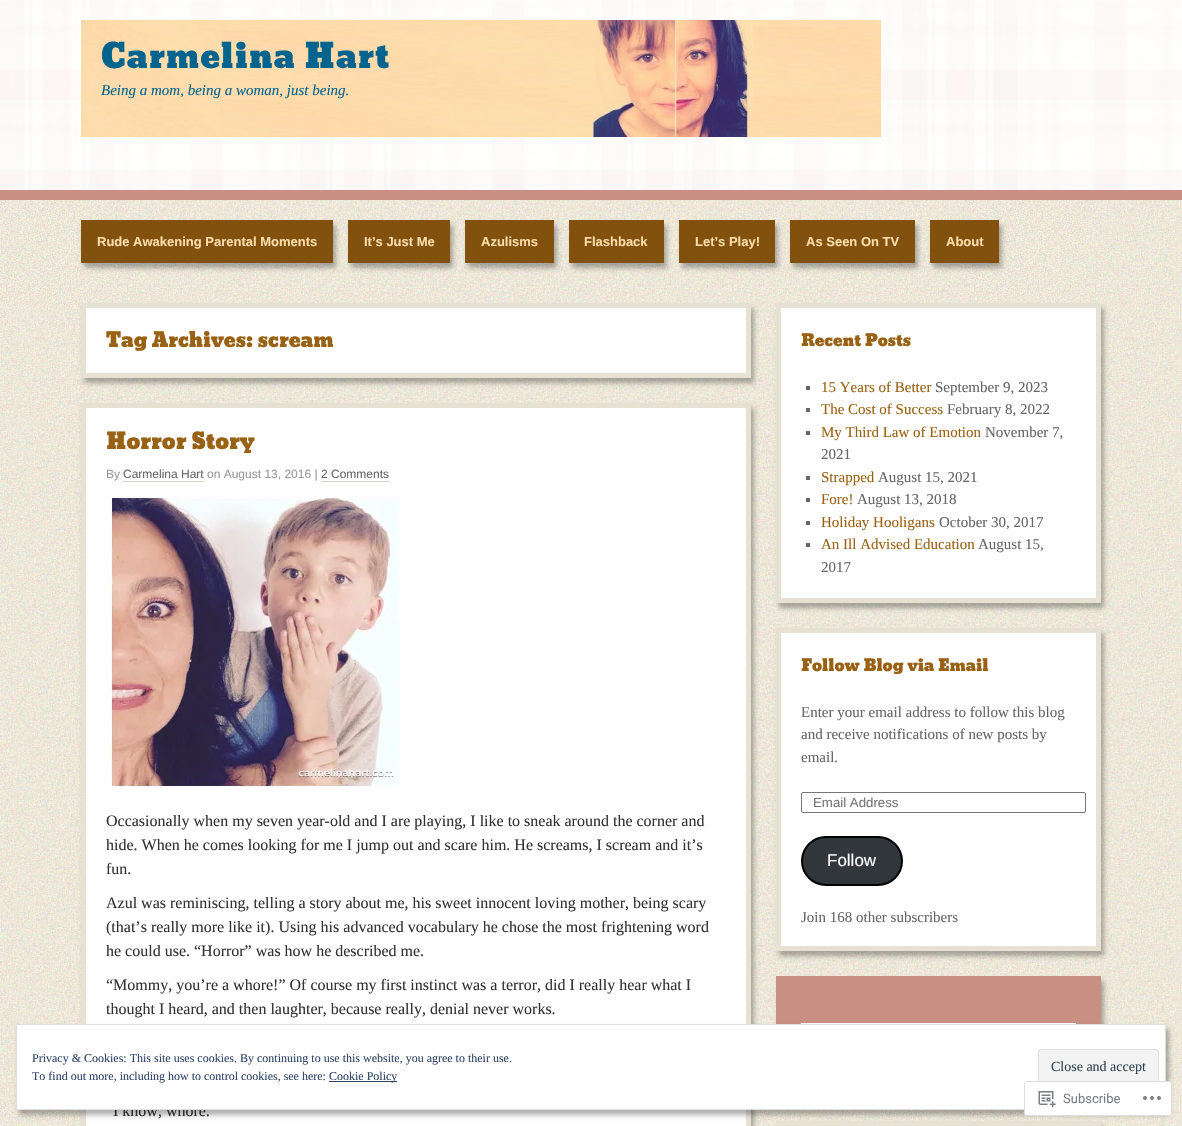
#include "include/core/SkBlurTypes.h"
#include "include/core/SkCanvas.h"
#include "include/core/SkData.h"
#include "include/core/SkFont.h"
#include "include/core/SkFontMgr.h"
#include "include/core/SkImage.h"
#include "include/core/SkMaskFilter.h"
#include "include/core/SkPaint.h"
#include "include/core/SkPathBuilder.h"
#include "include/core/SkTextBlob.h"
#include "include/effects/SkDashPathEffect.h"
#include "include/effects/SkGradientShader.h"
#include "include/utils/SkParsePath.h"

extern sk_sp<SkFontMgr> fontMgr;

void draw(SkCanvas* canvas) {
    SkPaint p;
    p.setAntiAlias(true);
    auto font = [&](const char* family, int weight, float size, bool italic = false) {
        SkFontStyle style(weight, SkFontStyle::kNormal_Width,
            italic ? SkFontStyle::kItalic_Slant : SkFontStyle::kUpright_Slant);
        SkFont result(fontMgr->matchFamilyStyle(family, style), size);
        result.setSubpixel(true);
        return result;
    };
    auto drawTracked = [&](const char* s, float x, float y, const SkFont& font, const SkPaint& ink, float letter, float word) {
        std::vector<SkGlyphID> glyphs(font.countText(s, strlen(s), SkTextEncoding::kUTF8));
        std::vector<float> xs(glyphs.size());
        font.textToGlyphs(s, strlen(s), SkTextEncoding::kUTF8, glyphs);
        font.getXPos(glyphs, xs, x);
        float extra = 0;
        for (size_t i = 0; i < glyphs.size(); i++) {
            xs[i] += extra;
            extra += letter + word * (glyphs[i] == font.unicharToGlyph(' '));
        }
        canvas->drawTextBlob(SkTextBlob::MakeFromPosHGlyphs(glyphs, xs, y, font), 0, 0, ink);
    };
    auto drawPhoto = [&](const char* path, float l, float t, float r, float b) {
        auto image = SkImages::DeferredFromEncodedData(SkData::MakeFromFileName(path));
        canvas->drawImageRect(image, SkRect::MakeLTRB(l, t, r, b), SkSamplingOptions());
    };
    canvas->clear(0xFFFFFFFF);
    drawPhoto("media/1.png", 0, 0, 1182, 190);
    p.setColor(0xFFC89083);
    canvas->drawRect(SkRect::MakeLTRB(0, 190, 1182, 200), p);
    drawPhoto("media/2.png", 81, 20, 881, 137);
    auto font1 = font("Bevan", 400, 33);
    p.setColor(0xFF04648D);
    drawTracked("Carmelina Hart", 101, 68, font1, p, 1, 0);
    auto font2 = font("Liberation Serif", 400, 15, true);
    canvas->drawString("Being a mom, being a woman, just being.", 101, 95, font2, p);
    drawPhoto("media/3.png", 0, 200, 1182, 1126);
    p.setColor(0x4D000000);
    p.setMaskFilter(SkMaskFilter::MakeBlur(kNormal_SkBlurStyle, 2.5f));
    canvas->drawRect(SkRect::MakeLTRB(84, 225, 336, 268), p);
    p.setMaskFilter(nullptr);
    p.setColor(0xFF81510D);
    canvas->drawRect(SkRect::MakeLTRB(81, 220, 333, 263), p);
    auto font3 = font("Liberation Sans", 700, 13);
    p.setColor(0xFFFDDDAC);
    canvas->drawString("Rude Awakening Parental Moments", 97, 246, font3, p);
    p.setColor(0x4D000000);
    p.setMaskFilter(SkMaskFilter::MakeBlur(kNormal_SkBlurStyle, 2.5f));
    canvas->drawRect(SkRect::MakeLTRB(351, 225, 453, 268), p);
    p.setMaskFilter(nullptr);
    p.setColor(0xFF81510D);
    canvas->drawRect(SkRect::MakeLTRB(348, 220, 450, 263), p);
    p.setColor(0xFFFDDDAC);
    canvas->drawString("It’s Just Me", 364, 246, font3, p);
    p.setColor(0x4D000000);
    p.setMaskFilter(SkMaskFilter::MakeBlur(kNormal_SkBlurStyle, 2.5f));
    canvas->drawRect(SkRect::MakeLTRB(468, 225, 557, 268), p);
    p.setMaskFilter(nullptr);
    p.setColor(0xFF81510D);
    canvas->drawRect(SkRect::MakeLTRB(465, 220, 554, 263), p);
    p.setColor(0xFFFDDDAC);
    canvas->drawString("Azulisms", 481, 246, font3, p);
    p.setColor(0x4D000000);
    p.setMaskFilter(SkMaskFilter::MakeBlur(kNormal_SkBlurStyle, 2.5f));
    canvas->drawRect(SkRect::MakeLTRB(572, 225, 667, 268), p);
    p.setMaskFilter(nullptr);
    p.setColor(0xFF81510D);
    canvas->drawRect(SkRect::MakeLTRB(569, 220, 664, 263), p);
    p.setColor(0xFFFDDDAC);
    canvas->drawString("Flashback", 584, 246, font3, p);
    p.setColor(0x4D000000);
    p.setMaskFilter(SkMaskFilter::MakeBlur(kNormal_SkBlurStyle, 2.5f));
    canvas->drawRect(SkRect::MakeLTRB(682, 225, 778, 268), p);
    p.setMaskFilter(nullptr);
    p.setColor(0xFF81510D);
    canvas->drawRect(SkRect::MakeLTRB(679, 220, 775, 263), p);
    p.setColor(0xFFFDDDAC);
    canvas->drawString("Let’s Play!", 695, 246, font3, p);
    p.setColor(0x4D000000);
    p.setMaskFilter(SkMaskFilter::MakeBlur(kNormal_SkBlurStyle, 2.5f));
    canvas->drawRect(SkRect::MakeLTRB(793, 225, 918, 268), p);
    p.setMaskFilter(nullptr);
    p.setColor(0xFF81510D);
    canvas->drawRect(SkRect::MakeLTRB(790, 220, 915, 263), p);
    p.setColor(0xFFFDDDAC);
    canvas->drawString("As Seen On TV", 806, 246, font3, p);
    p.setColor(0x4D000000);
    p.setMaskFilter(SkMaskFilter::MakeBlur(kNormal_SkBlurStyle, 2.5f));
    canvas->drawRect(SkRect::MakeLTRB(933, 225, 1002, 268), p);
    p.setMaskFilter(nullptr);
    p.setColor(0xFF81510D);
    canvas->drawRect(SkRect::MakeLTRB(930, 220, 999, 263), p);
    p.setColor(0xFFFDDDAC);
    canvas->drawString("About", 946, 246, font3, p);
    p.setColor(0x4D000000);
    p.setMaskFilter(SkMaskFilter::MakeBlur(kNormal_SkBlurStyle, 2.5f));
    canvas->drawRect(SkRect::MakeLTRB(84, 308, 754, 383), p);
    p.setMaskFilter(nullptr);
    p.setColor(0xFFFEFEFE);
    canvas->drawRect(SkRect::MakeLTRB(83.5f, 305.5f, 748.5f, 375.5f), p);
    p.setStyle(SkPaint::kStroke_Style);
    p.setStrokeWidth(5);
    p.setColor(0xFFE7E1D4);
    canvas->drawRect(SkRect::MakeLTRB(83.5f, 305.5f, 748.5f, 375.5f), p);
    auto font4 = font("Bevan", 400, 20);
    p.setStyle(SkPaint::kFill_Style);
    p.setColor(0xFF996113);
    canvas->drawString("Tag Archives: scream", 106, 347, font4, p);
    p.setColor(0x4D000000);
    p.setMaskFilter(SkMaskFilter::MakeBlur(kNormal_SkBlurStyle, 2.5f));
    canvas->drawRect(SkRect::MakeLTRB(84, 408, 754, 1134), p);
    p.setMaskFilter(nullptr);
    p.setColor(0xFFFEFEFE);
    canvas->drawRect(SkRect::MakeLTRB(83.5f, 405.5f, 748.5f, 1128.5f), p);
    p.setStyle(SkPaint::kStroke_Style);
    p.setColor(0xFFE7E1D4);
    canvas->drawRect(SkRect::MakeLTRB(83.5f, 405.5f, 748.5f, 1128.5f), p);
    auto font5 = font("Bevan", 400, 22);
    p.setStyle(SkPaint::kFill_Style);
    p.setColor(0xFF996113);
    canvas->drawString("Horror Story", 106, 449, font5, p);
    auto font6 = font("Liberation Sans", 400, 12);
    p.setColor(0xFF999999);
    canvas->drawString("By", 106, 478, font6, p);
    p.setColor(0xFF666666);
    canvas->drawString("Carmelina Hart", 123, 478, font6, p);
    p.setColor(0xFFD8D1C3);
    canvas->drawRect(SkRect::MakeLTRB(123, 481, 204, 482), p);
    p.setColor(0xFF999999);
    canvas->drawString("on August 13, 2016 |", 207, 478, font6, p);
    p.setColor(0xFF666666);
    canvas->drawString("2 Comments", 321, 478, font6, p);
    p.setColor(0xFFD8D1C3);
    canvas->drawRect(SkRect::MakeLTRB(321, 481, 389, 482), p);
    drawPhoto("media/4.png", 106, 496, 400, 788);
    auto font7 = font("Liberation Serif", 400, 16);
    p.setColor(0xFF333333);
    {
        const struct { const char* s; float x, y; } items[] = {
            {"Occasionally when my seven year-old and I are playing, I like to sneak around the corner and", 106, 826},
            {"hide. When he comes looking for me I jump out and scare him. He screams, I scream and it’s", 106, 850},
            {"fun.", 106, 874},
            {"Azul was reminiscing, telling a story about me, his sweet innocent loving mother, being scary", 106, 908},
            {"(that’s really more like it). Using his advanced vocabulary he chose the most frightening word", 106, 932},
            {"he could use. “Horror” was how he described me.", 106, 956},
            {"“Mommy, you’re a whore!” Of course my first instinct was a terror, did I really hear what I", 106, 990},
            {"thought I heard, and then laughter, because really, denial never works.", 106, 1014},
            {"I know, whore.", 113, 1116},
        };
        for (auto [s, x, y] : items) {
            canvas->drawString(s, x, y, font7, p);
        }
    }
    p.setColor(0x4D000000);
    p.setMaskFilter(SkMaskFilter::MakeBlur(kNormal_SkBlurStyle, 2.5f));
    canvas->drawRect(SkRect::MakeLTRB(779, 308, 1104, 608), p);
    p.setMaskFilter(nullptr);
    p.setColor(0xFFFEFEFE);
    canvas->drawRect(SkRect::MakeLTRB(778.5f, 305.5f, 1098.5f, 600.5f), p);
    p.setStyle(SkPaint::kStroke_Style);
    p.setColor(0xFFE7E1D4);
    canvas->drawRect(SkRect::MakeLTRB(778.5f, 305.5f, 1098.5f, 600.5f), p);
    auto font8 = font("Bevan", 400, 16);
    p.setStyle(SkPaint::kFill_Style);
    p.setColor(0xFF996113);
    canvas->drawString("Recent Posts", 801, 346, font8, p);
    p.setColor(0xFF666666);
    canvas->drawRect(SkRect::MakeLTRB(806, 386, 810, 390), p);
    auto font9 = font("Liberation Serif", 400, 15);
    p.setColor(0xFF996113);
    canvas->drawString("15 Years of Better", 821, 392, font9, p);
    p.setColor(0xFF666666);
    canvas->drawString("September 9, 2023", 935, 392, font9, p);
    canvas->drawRect(SkRect::MakeLTRB(806, 408, 810, 412), p);
    p.setColor(0xFF996113);
    canvas->drawString("The Cost of Success", 821, 414, font9, p);
    p.setColor(0xFF666666);
    canvas->drawString("February 8, 2022", 947, 414, font9, p);
    canvas->drawRect(SkRect::MakeLTRB(806, 431, 810, 435), p);
    p.setColor(0xFF996113);
    canvas->drawString("My Third Law of Emotion", 821, 437, font9, p);
    p.setColor(0xFF666666);
    canvas->drawString("November 7,", 985, 437, font9, p);
    canvas->drawString("2021", 821, 459, font9, p);
    canvas->drawRect(SkRect::MakeLTRB(806, 476, 810, 480), p);
    p.setColor(0xFF996113);
    canvas->drawString("Strapped", 821, 482, font9, p);
    p.setColor(0xFF666666);
    canvas->drawString("August 15, 2021", 878, 482, font9, p);
    canvas->drawRect(SkRect::MakeLTRB(806, 498, 810, 502), p);
    p.setColor(0xFF996113);
    canvas->drawString("Fore!", 821, 504, font9, p);
    p.setColor(0xFF666666);
    canvas->drawString("August 13, 2018", 857, 504, font9, p);
    canvas->drawRect(SkRect::MakeLTRB(806, 521, 810, 525), p);
    p.setColor(0xFF996113);
    canvas->drawString("Holiday Hooligans", 821, 527, font9, p);
    p.setColor(0xFF666666);
    canvas->drawString("October 30, 2017", 939, 527, font9, p);
    canvas->drawRect(SkRect::MakeLTRB(806, 543, 810, 547), p);
    p.setColor(0xFF996113);
    canvas->drawString("An Ill Advised Education", 821, 549, font9, p);
    p.setColor(0xFF666666);
    canvas->drawString("August 15,", 978, 549, font9, p);
    canvas->drawString("2017", 821, 572, font9, p);
    p.setColor(0x4D000000);
    p.setMaskFilter(SkMaskFilter::MakeBlur(kNormal_SkBlurStyle, 2.5f));
    canvas->drawRect(SkRect::MakeLTRB(779, 633, 1104, 956), p);
    p.setMaskFilter(nullptr);
    p.setColor(0xFFFEFEFE);
    canvas->drawRect(SkRect::MakeLTRB(778.5f, 630.5f, 1098.5f, 948.5f), p);
    p.setStyle(SkPaint::kStroke_Style);
    p.setColor(0xFFE7E1D4);
    canvas->drawRect(SkRect::MakeLTRB(778.5f, 630.5f, 1098.5f, 948.5f), p);
    p.setStyle(SkPaint::kFill_Style);
    p.setColor(0xFF996113);
    canvas->drawString("Follow Blog via Email", 801, 671, font8, p);
    p.setColor(0xFF666666);
    {
        const struct { const char* s; float x, y; } items[] = {
            {"Enter your email address to follow this blog", 801, 717},
            {"and receive notifications of new posts by", 801, 739},
            {"email.", 801, 762},
        };
        for (auto [s, x, y] : items) {
            canvas->drawString(s, x, y, font9, p);
        }
    }
    p.setStyle(SkPaint::kStroke_Style);
    p.setStrokeWidth(1);
    p.setColor(0xFF767676);
    canvas->drawRoundRect(SkRect::MakeLTRB(801.5f, 792.5f, 1085.5f, 812.5f), 1.5f, 1.5f, p);
    auto font10 = font("Liberation Sans", 400, 13.25f);
    p.setStyle(SkPaint::kFill_Style);
    p.setColor(0xFF757575);
    canvas->drawString("Email Address", 813, 807, font10, p);
    p.setColor(0xFF32373C);
    canvas->drawRoundRect(SkRect::MakeLTRB(802, 837, 902, 885), 24, 24, p);
    p.setStyle(SkPaint::kStroke_Style);
    p.setStrokeWidth(2);
    p.setColor(0xFF000000);
    canvas->drawRoundRect(SkRect::MakeLTRB(802, 837, 902, 885), 24, 24, p);
    auto font11 = font("Liberation Sans", 400, 17);
    p.setStyle(SkPaint::kFill_Style);
    p.setColor(0xFFFFFFFF);
    canvas->drawString("Follow", 827, 866, font11, p);
    p.setColor(0xFF666666);
    canvas->drawString("Join 168 other subscribers", 801, 922, font9, p);
    p.setColor(0x4D000000);
    p.setMaskFilter(SkMaskFilter::MakeBlur(kNormal_SkBlurStyle, 2.5f));
    canvas->drawRect(SkRect::MakeLTRB(779, 981, 1104, 1101), p);
    p.setMaskFilter(nullptr);
    p.setColor(0xFFC89083);
    canvas->drawRect(SkRect::MakeLTRB(776, 976, 1101, 1024), p);
    p.setColor(0xFFFFFFFF);
    canvas->drawRect(SkRect::MakeLTRB(801, 1023, 1076, 1024), p);
    p.setColor(0x4D000000);
    p.setMaskFilter(SkMaskFilter::MakeBlur(kNormal_SkBlurStyle, 2.5f));
    canvas->drawRect(SkRect::MakeLTRB(779, 1126, 1104, 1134), p);
    p.setMaskFilter(nullptr);
    p.setStyle(SkPaint::kStroke_Style);
    p.setStrokeWidth(5);
    p.setColor(0xFFE7E1D4);
    canvas->drawRect(SkRect::MakeLTRB(778.5f, 1123.5f, 1098.5f, 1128.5f), p);
    p.setStyle(SkPaint::kFill_Style);
    p.setColor(0x4D000000);
    p.setMaskFilter(SkMaskFilter::MakeBlur(kNormal_SkBlurStyle, 2.5f));
    canvas->drawRect(SkRect::MakeLTRB(19, 1029, 1169, 1115), p);
    p.setMaskFilter(nullptr);
    p.setColor(0xFFFEFEFE);
    canvas->drawRect(SkRect::MakeLTRB(16.5f, 1024.5f, 1165.5f, 1109.5f), p);
    p.setStyle(SkPaint::kStroke_Style);
    p.setStrokeWidth(1);
    p.setColor(0xFFDEDEDE);
    canvas->drawRect(SkRect::MakeLTRB(16.5f, 1024.5f, 1165.5f, 1109.5f), p);
    auto font12 = font("Liberation Serif", 400, 12);
    p.setStyle(SkPaint::kFill_Style);
    p.setColor(0xFF2E4467);
    canvas->drawString("Privacy & Cookies: This site uses cookies. By continuing to use this website, you agree to their use.", 32, 1062, font12, p);
    p.setColor(0xFFF3F3F3);
    canvas->drawRoundRect(SkRect::MakeLTRB(1038.5f, 1049.5f, 1158.5f, 1084.5f), 2.5f, 2.5f, p);
    p.setStyle(SkPaint::kStroke_Style);
    p.setColor(0xFFDEDEDE);
    canvas->drawRoundRect(SkRect::MakeLTRB(1038.5f, 1049.5f, 1158.5f, 1084.5f), 2.5f, 2.5f, p);
    auto font13 = font("Liberation Serif", 400, 14);
    p.setStyle(SkPaint::kFill_Style);
    p.setColor(0xFF2E4453);
    canvas->drawString("Close and accept", 1051, 1071, font13, p);
    p.setColor(0xFF2E4467);
    canvas->drawString("To find out more, including how to control cookies, see here:", 32, 1080, font12, p);
    canvas->drawRect(SkRect::MakeLTRB(329, 1081, 397, 1082), p);
    canvas->drawString("Cookie Policy", 329, 1080, font12, p);
    p.setColor(0xFAFFFFFF);
    canvas->drawRoundRect(SkRect::MakeLTRB(1024, 1081, 1172, 1116), 3, 3, p);
    p.setStyle(SkPaint::kStroke_Style);
    p.setColor(0xFADCDCDE);
    canvas->drawRoundRect(SkRect::MakeLTRB(1024.5f, 1081.5f, 1171.5f, 1115.5f), 2.5f, 2.5f, p);
    drawPhoto("media/5.png", 1038, 1091, 1056, 1108);
    auto font14 = font("Roboto", 400, 13);
    p.setStyle(SkPaint::kFill_Style);
    p.setColor(0xFF7B7F84);
    canvas->drawString("Subscribe", 1063, 1103, font14, p);
    drawPhoto("media/6.png", 1143, 1096, 1161, 1100);
}
